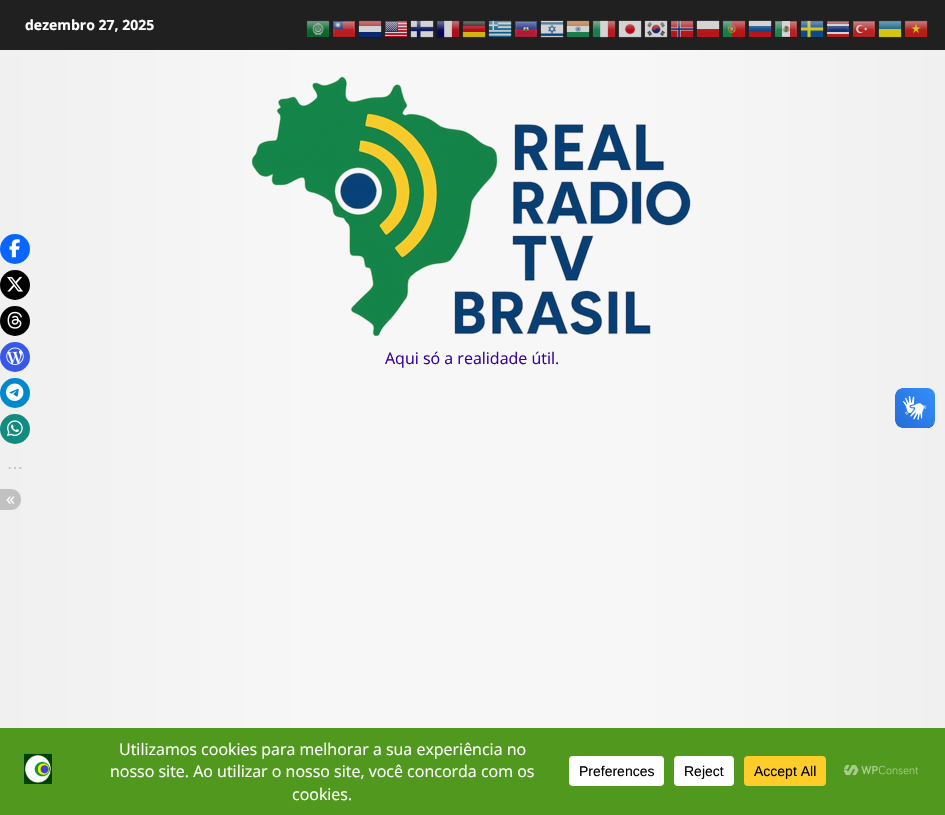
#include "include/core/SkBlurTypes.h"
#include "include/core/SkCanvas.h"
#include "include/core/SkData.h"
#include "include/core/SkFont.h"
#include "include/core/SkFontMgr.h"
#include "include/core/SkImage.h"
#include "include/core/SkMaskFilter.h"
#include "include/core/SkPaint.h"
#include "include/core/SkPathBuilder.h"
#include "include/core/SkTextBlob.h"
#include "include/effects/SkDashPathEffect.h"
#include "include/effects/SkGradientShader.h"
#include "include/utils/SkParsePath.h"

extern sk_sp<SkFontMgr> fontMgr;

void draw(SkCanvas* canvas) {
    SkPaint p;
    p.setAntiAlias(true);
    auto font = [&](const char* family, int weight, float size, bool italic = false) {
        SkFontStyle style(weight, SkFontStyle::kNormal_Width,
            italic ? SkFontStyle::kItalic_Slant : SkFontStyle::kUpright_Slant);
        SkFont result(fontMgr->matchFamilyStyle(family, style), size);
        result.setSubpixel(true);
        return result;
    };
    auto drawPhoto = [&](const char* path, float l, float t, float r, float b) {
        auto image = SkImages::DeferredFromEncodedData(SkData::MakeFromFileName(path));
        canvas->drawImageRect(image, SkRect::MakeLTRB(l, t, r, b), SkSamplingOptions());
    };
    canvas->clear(0xFFFFFFFF);
    p.setColor(0xFF202020);
    canvas->drawRect(SkRect::MakeLTRB(0, 0, 945, 50), p);
    auto font1 = font("Open Sans", 700, 14);
    p.setColor(0xFFFFFFFF);
    canvas->drawString("dezembro 27, 2025", 25, 30, font1, p);
    {
        const SkColor colors[] = {0xFFF0F0F0, 0xFFF7F7F7, 0xFFF7F7F7, 0xFFF0F0F0};
        const float stops[] = {0, 0.33f, 0.67f, 1};
        const SkPoint ends[] = {{0, 718}, {945, 718}};
        p.setShader(SkGradientShader::MakeLinear(ends, colors, stops, 4, SkTileMode::kClamp));
        p.setAlpha(255);
    }
    canvas->drawRect(SkRect::MakeLTRB(0, 50, 945, 728), p);
    drawPhoto("media/1.png", 251, 76, 691, 337);
    auto font2 = font("Open Sans", 400, 16);
    p.setShader(nullptr);
    p.setColor(0xFF34019B);
    canvas->drawString("Aqui só a realidade útil.", 385, 364, font2, p);
    drawPhoto("media/2.png", 895, 388, 935, 428);
    drawPhoto("media/3.png", 895, 388, 935, 428);
    drawPhoto("media/4.png", 306, 20, 330, 38);
    drawPhoto("media/5.png", 333, 21, 355, 38);
    drawPhoto("media/6.png", 358, 20, 382, 38);
    drawPhoto("media/7.png", 385, 21, 407, 38);
    drawPhoto("media/8.png", 410, 20, 434, 38);
    drawPhoto("media/9.png", 436, 20, 460, 38);
    drawPhoto("media/10.png", 462, 21, 486, 38);
    drawPhoto("media/11.png", 488, 20, 512, 38);
    drawPhoto("media/12.png", 515, 21, 537, 38);
    drawPhoto("media/13.png", 540, 20, 564, 38);
    drawPhoto("media/14.png", 566, 20, 590, 38);
    drawPhoto("media/15.png", 592, 20, 616, 38);
    drawPhoto("media/16.png", 618, 20, 642, 38);
    drawPhoto("media/17.png", 644, 20, 668, 38);
    drawPhoto("media/18.png", 670, 20, 694, 38);
    drawPhoto("media/19.png", 696, 20, 720, 38);
    drawPhoto("media/20.png", 722, 20, 746, 38);
    drawPhoto("media/21.png", 748, 20, 772, 38);
    drawPhoto("media/22.png", 775, 21, 797, 38);
    drawPhoto("media/23.png", 800, 20, 824, 38);
    drawPhoto("media/24.png", 827, 21, 849, 38);
    drawPhoto("media/25.png", 853, 21, 875, 38);
    drawPhoto("media/26.png", 878, 20, 902, 38);
    drawPhoto("media/27.png", 904, 20, 928, 38);
    p.setColor(0xFF0866FF);
    canvas->drawCircle(15, 249, 15, p);
    drawPhoto("media/28.png", 9, 239, 20, 258);
    p.setColor(0xFF000000);
    canvas->drawCircle(15, 285, 15, p);
    drawPhoto("media/29.png", 7, 276, 23, 292);
    canvas->drawCircle(15, 321, 15, p);
    drawPhoto("media/30.png", 7, 311, 22, 329);
    p.setColor(0xFF3858E9);
    canvas->drawCircle(15, 357, 15, p);
    drawPhoto("media/31.png", 6, 347, 24, 365);
    p.setColor(0xFF0088CC);
    canvas->drawCircle(15, 393, 15, p);
    drawPhoto("media/32.png", 6, 383, 24, 401);
    p.setColor(0xFF128C7E);
    canvas->drawCircle(15, 429, 15, p);
    drawPhoto("media/33.png", 7, 420, 23, 437);
    auto font3 = font("DejaVu Sans", 400, 16);
    p.setColor(0xFFC1C1C1);
    canvas->drawString("⋯", 7, 473, font3, p);
    canvas->drawPath(SkPathBuilder().moveTo(0, 489).lineTo(10.5f, 489).cubicTo(16.5f, 489, 21, 493.5f, 21, 499.5f).cubicTo(21, 505.5f, 16.5f, 510, 10.5f, 510).lineTo(0, 510).close().detach(), p);
    auto font4 = font("Open Sans", 400, 18);
    p.setColor(0xFFFFFFFF);
    canvas->drawString("«", 6, 505, font4, p);
    p.setColor(0xFF51991E);
    canvas->drawRect(SkRect::MakeLTRB(0, 728, 945, 815), p);
    drawPhoto("media/34.png", 24, 753, 52, 784);
    p.setColor(0xFFFFFFFF);
    {
        const struct { const char* s; float x, y; } items[] = {
            {"Utilizamos cookies para melhorar a sua experiência no", 119, 755},
            {"nosso site. Ao utilizar o nosso site, você concorda com os", 110, 777},
            {"cookies.", 292, 800},
        };
        for (auto [s, x, y] : items) {
            canvas->drawString(s, x, y, font2, p);
        }
    }
    canvas->drawRoundRect(SkRect::MakeLTRB(569, 756, 664, 786), 4, 4, p);
    auto font5 = font("Liberation Sans", 400, 14);
    p.setColor(0xFF000000);
    canvas->drawString("Preferences", 579, 776, font5, p);
    p.setColor(0xFFFFFFFF);
    canvas->drawRoundRect(SkRect::MakeLTRB(674, 756, 734, 786), 4, 4, p);
    p.setColor(0xFF000000);
    canvas->drawString("Reject", 684, 776, font5, p);
    p.setColor(0xFFFFCD2A);
    canvas->drawRoundRect(SkRect::MakeLTRB(744, 756, 826, 786), 4, 4, p);
    p.setColor(0xFF000000);
    canvas->drawString("Accept All", 754, 776, font5, p);
    drawPhoto("media/35.png", 843, 765, 918, 776);
}
